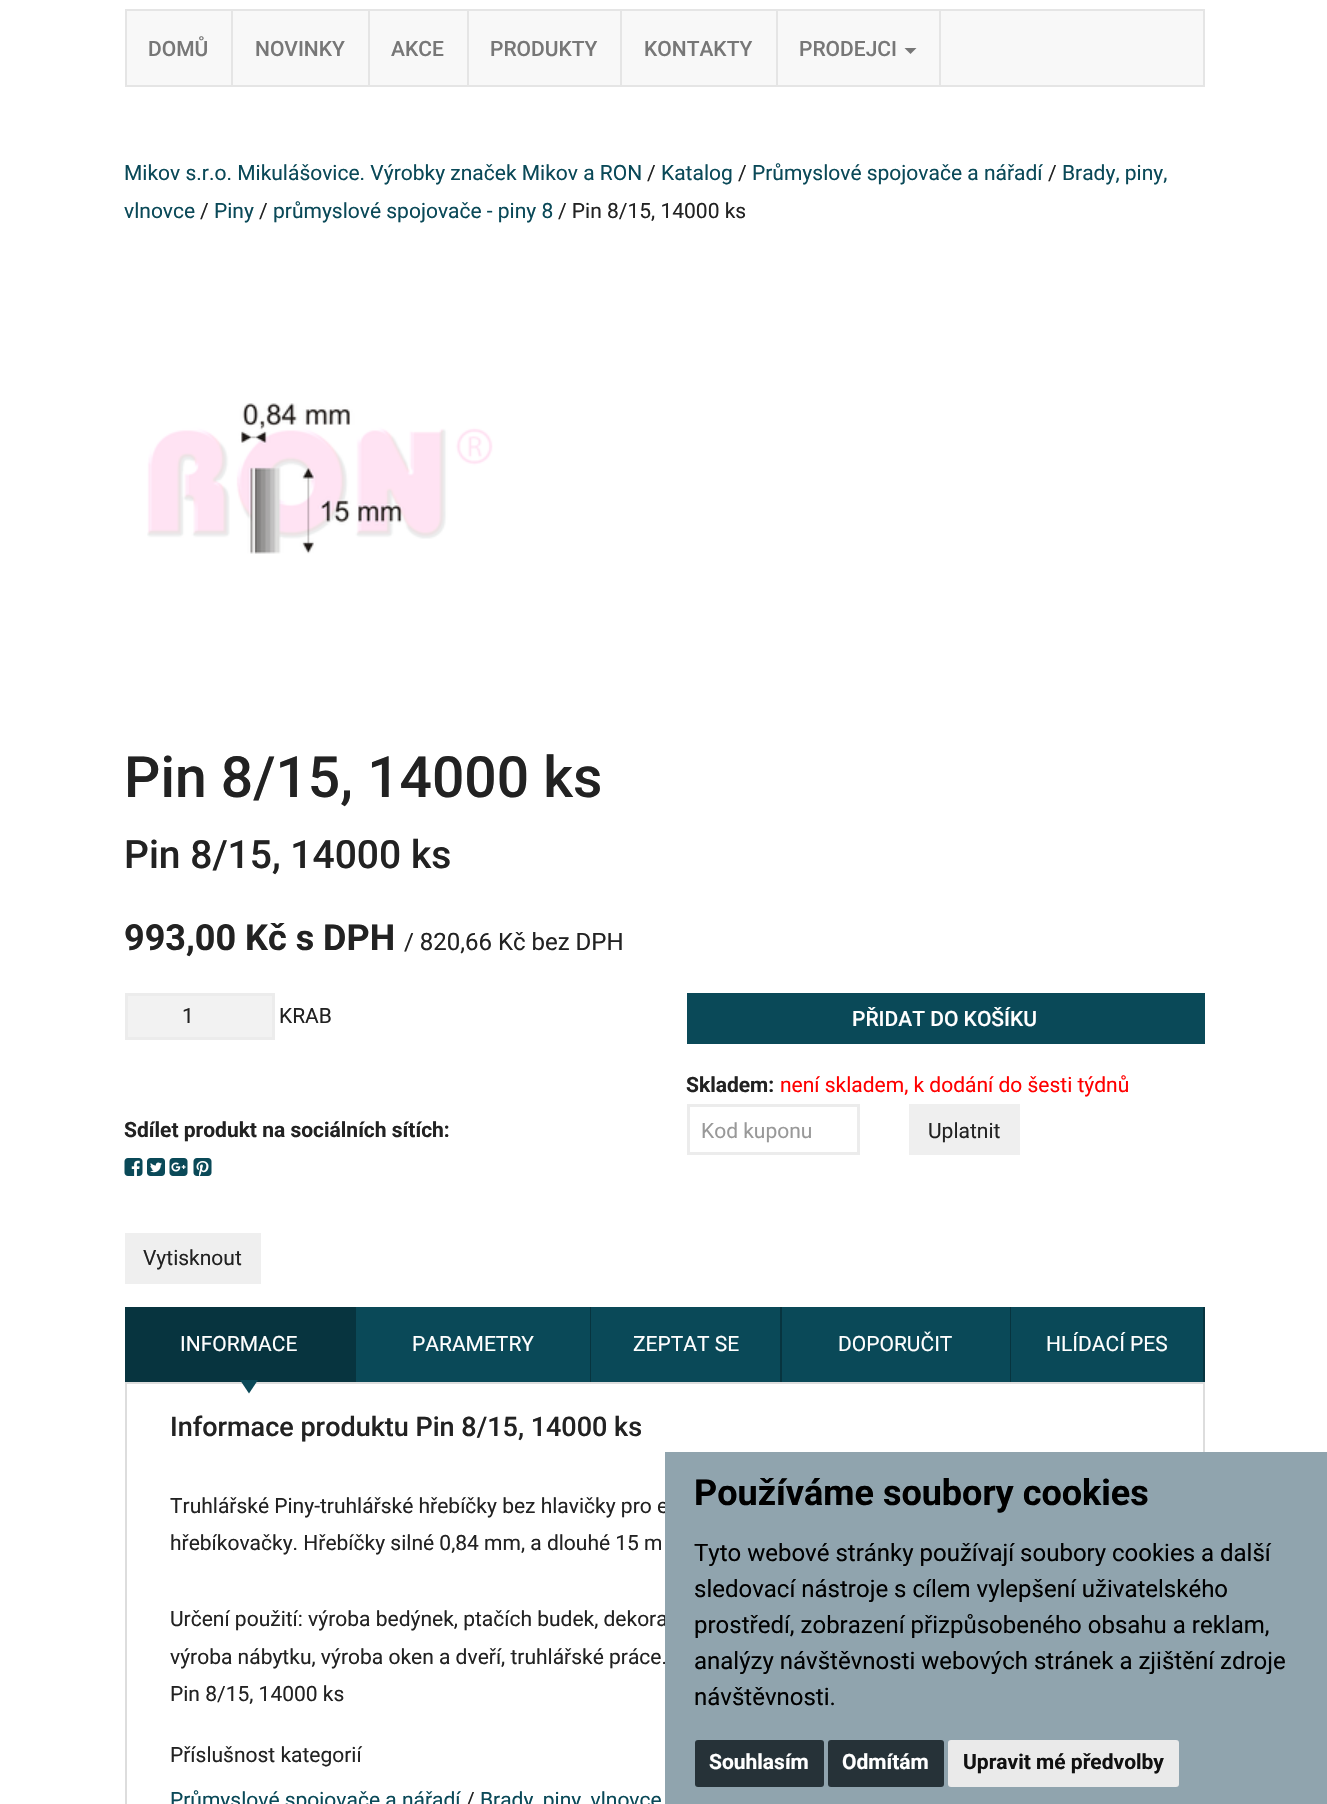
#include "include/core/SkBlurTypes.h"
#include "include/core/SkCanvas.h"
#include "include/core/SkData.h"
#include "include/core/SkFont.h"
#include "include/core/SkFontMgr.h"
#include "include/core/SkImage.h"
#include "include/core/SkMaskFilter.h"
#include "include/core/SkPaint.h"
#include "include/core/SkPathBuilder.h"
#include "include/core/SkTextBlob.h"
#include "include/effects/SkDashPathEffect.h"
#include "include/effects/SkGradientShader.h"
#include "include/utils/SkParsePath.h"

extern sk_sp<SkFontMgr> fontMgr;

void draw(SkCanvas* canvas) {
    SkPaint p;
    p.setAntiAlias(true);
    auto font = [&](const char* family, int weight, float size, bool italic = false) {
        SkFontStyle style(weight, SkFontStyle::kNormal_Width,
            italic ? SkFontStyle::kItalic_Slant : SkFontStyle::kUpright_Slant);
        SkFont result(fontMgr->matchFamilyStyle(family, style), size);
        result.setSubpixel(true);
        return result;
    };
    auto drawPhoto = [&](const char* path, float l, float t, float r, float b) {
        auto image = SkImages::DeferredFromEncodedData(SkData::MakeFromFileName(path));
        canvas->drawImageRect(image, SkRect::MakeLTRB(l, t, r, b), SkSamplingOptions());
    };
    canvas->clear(0xFFFFFFFF);
    p.setColor(0xFFF8F8F8);
    canvas->drawRect(SkRect::MakeLTRB(126, 10, 1204, 86), p);
    p.setStyle(SkPaint::kStroke_Style);
    p.setStrokeWidth(2);
    p.setColor(0xFFE5E5E5);
    canvas->drawRect(SkRect::MakeLTRB(126, 10, 1204, 86), p);
    p.setStyle(SkPaint::kFill_Style);
    canvas->drawRect(SkRect::MakeLTRB(231, 11, 233, 86), p);
    auto font1 = font("Roboto", 500, 21);
    p.setColor(0xFF777777);
    canvas->drawString("DOMŮ", 148, 56, font1, p);
    p.setColor(0xFFE5E5E5);
    canvas->drawRect(SkRect::MakeLTRB(368, 11, 370, 86), p);
    p.setColor(0xFF777777);
    canvas->drawString("NOVINKY", 255, 56, font1, p);
    p.setColor(0xFFE5E5E5);
    canvas->drawRect(SkRect::MakeLTRB(467, 11, 469, 86), p);
    p.setColor(0xFF777777);
    canvas->drawString("AKCE", 391, 56, font1, p);
    p.setColor(0xFFE5E5E5);
    canvas->drawRect(SkRect::MakeLTRB(620, 11, 622, 86), p);
    p.setColor(0xFF777777);
    canvas->drawString("PRODUKTY", 490, 56, font1, p);
    p.setColor(0xFFE5E5E5);
    canvas->drawRect(SkRect::MakeLTRB(776, 11, 778, 86), p);
    p.setColor(0xFF777777);
    canvas->drawString("KONTAKTY", 644, 56, font1, p);
    p.setColor(0xFFE5E5E5);
    canvas->drawRect(SkRect::MakeLTRB(939, 11, 941, 86), p);
    p.setColor(0xFF777777);
    canvas->drawString("PRODEJCI", 799, 56, font1, p);
    canvas->drawPath(SkPathBuilder().moveTo(904.5f, 48).lineTo(916.5f, 48).lineTo(910.5f, 54).close().detach(), p);
    auto font2 = font("Roboto", 400, 21);
    p.setColor(0xFF0A4958);
    canvas->drawString("Mikov s.r.o. Mikulášovice. Výrobky značek Mikov a RON", 124, 180, font2, p);
    p.setColor(0xFF222222);
    canvas->drawString("/", 647, 180, font2, p);
    p.setColor(0xFF0A4958);
    canvas->drawString("Katalog", 661, 180, font2, p);
    p.setColor(0xFF222222);
    canvas->drawString("/", 738, 180, font2, p);
    p.setColor(0xFF0A4958);
    canvas->drawString("Průmyslové spojovače a nářadí", 752, 180, font2, p);
    p.setColor(0xFF222222);
    canvas->drawString("/", 1048, 180, font2, p);
    p.setColor(0xFF0A4958);
    canvas->drawString("Brady, piny,", 1062, 180, font2, p);
    canvas->drawString("vlnovce", 124, 218, font2, p);
    p.setColor(0xFF222222);
    canvas->drawString("/", 200, 218, font2, p);
    p.setColor(0xFF0A4958);
    canvas->drawString("Piny", 214, 218, font2, p);
    p.setColor(0xFF222222);
    canvas->drawString("/", 259, 218, font2, p);
    p.setColor(0xFF0A4958);
    canvas->drawString("průmyslové spojovače - piny 8", 273, 218, font2, p);
    p.setColor(0xFF222222);
    canvas->drawString("/ Pin 8/15, 14000 ks", 558, 218, font2, p);
    drawPhoto("media/1.png", 147, 403, 493, 554);
    auto font3 = font("Roboto", 500, 57);
    canvas->drawString("Pin 8/15, 14000 ks", 124, 797, font3, p);
    auto font4 = font("Roboto", 500, 39);
    canvas->drawString("Pin 8/15, 14000 ks", 124, 868, font4, p);
    auto font5 = font("Roboto", 700, 36);
    canvas->drawString("993,00 Kč s DPH", 124, 950, font5, p);
    auto font6 = font("Roboto", 400, 24);
    canvas->drawString("/ 820,66 Kč bez DPH", 404, 950, font6, p);
    p.setColor(0xFFF2F2F2);
    canvas->drawRect(SkRect::MakeLTRB(126.5f, 994.5f, 273.5f, 1038.5f), p);
    p.setStyle(SkPaint::kStroke_Style);
    p.setStrokeWidth(3);
    p.setColor(0xFFECECEC);
    canvas->drawRect(SkRect::MakeLTRB(126.5f, 994.5f, 273.5f, 1038.5f), p);
    p.setStyle(SkPaint::kFill_Style);
    p.setColor(0xFF222222);
    canvas->drawString("1", 182, 1023, font2, p);
    canvas->drawString("KRAB", 279, 1023, font2, p);
    p.setColor(0xFF0A4958);
    canvas->drawRect(SkRect::MakeLTRB(687, 993, 1205, 1044), p);
    p.setColor(0xFFFFFFFF);
    canvas->drawString("PŘIDAT DO KOŠÍKU", 852, 1026, font1, p);
    auto font7 = font("Roboto", 700, 21);
    p.setColor(0xFF222222);
    canvas->drawString("Skladem:", 686, 1092, font7, p);
    p.setColor(0xFFFF0000);
    canvas->drawString("není skladem, k dodání do šesti týdnů", 780, 1092, font2, p);
    p.setColor(0xFF222222);
    canvas->drawString("Sdílet produkt na sociálních sítích:", 124, 1137, font7, p);
    drawPhoto("media/2.png", 124, 1158, 143, 1176);
    drawPhoto("media/3.png", 147, 1158, 165, 1176);
    drawPhoto("media/4.png", 169, 1158, 188, 1176);
    drawPhoto("media/5.png", 193, 1158, 212, 1176);
    p.setStyle(SkPaint::kStroke_Style);
    p.setColor(0xFFECECEC);
    canvas->drawRect(SkRect::MakeLTRB(688.5f, 1105.5f, 858.5f, 1153.5f), p);
    p.setStyle(SkPaint::kFill_Style);
    p.setColor(0xFF999999);
    canvas->drawString("Kod kuponu", 701, 1138, font2, p);
    p.setColor(0xFFEFEFEF);
    canvas->drawRect(SkRect::MakeLTRB(909, 1104, 1020, 1155), p);
    p.setColor(0xFF222222);
    canvas->drawString("Uplatnit", 928, 1138, font2, p);
    p.setColor(0xFFEFEFEF);
    canvas->drawRect(SkRect::MakeLTRB(125, 1233, 261, 1284), p);
    p.setColor(0xFF222222);
    canvas->drawString("Vytisknout", 143, 1265, font2, p);
    p.setColor(0xFF07343F);
    canvas->drawRect(SkRect::MakeLTRB(125, 1307, 356, 1382), p);
    p.setColor(0xFFFFFFFF);
    canvas->drawString("INFORMACE", 180, 1351, font2, p);
    p.setStyle(SkPaint::kStroke_Style);
    p.setStrokeWidth(2);
    p.setColor(0xFFDDDDDD);
    canvas->drawRect(SkRect::MakeLTRB(126, 1383, 1204, 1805), p);
    p.setStyle(SkPaint::kFill_Style);
    p.setColor(0xFF0A4958);
    canvas->drawPath(SkPathBuilder().moveTo(240, 1380).lineTo(258, 1380).lineTo(249, 1393.5f).close().detach(), p);
    canvas->drawRect(SkRect::MakeLTRB(356, 1307, 590, 1382), p);
    p.setColor(0xFF07343F);
    canvas->drawRect(SkRect::MakeLTRB(590, 1307, 591, 1382), p);
    p.setColor(0xFFFFFFFF);
    canvas->drawString("PARAMETRY", 412, 1351, font2, p);
    p.setColor(0xFF0A4958);
    canvas->drawRect(SkRect::MakeLTRB(591, 1307, 780, 1382), p);
    p.setColor(0xFF07343F);
    canvas->drawRect(SkRect::MakeLTRB(780, 1307, 782, 1382), p);
    p.setColor(0xFFFFFFFF);
    canvas->drawString("ZEPTAT SE", 633, 1351, font2, p);
    p.setColor(0xFF0A4958);
    canvas->drawRect(SkRect::MakeLTRB(782, 1307, 1010, 1382), p);
    p.setColor(0xFF07343F);
    canvas->drawRect(SkRect::MakeLTRB(1010, 1307, 1011, 1382), p);
    p.setColor(0xFFFFFFFF);
    canvas->drawString("DOPORUČIT", 838, 1351, font2, p);
    p.setColor(0xFF0A4958);
    canvas->drawRect(SkRect::MakeLTRB(1011, 1307, 1203, 1382), p);
    p.setColor(0xFF07343F);
    canvas->drawRect(SkRect::MakeLTRB(1203, 1307, 1205, 1382), p);
    p.setColor(0xFFFFFFFF);
    canvas->drawString("HLÍDACÍ PES", 1046, 1351, font2, p);
    auto font8 = font("Roboto", 500, 27);
    p.setColor(0xFF222222);
    canvas->drawString("Informace produktu Pin 8/15, 14000 ks", 170, 1436, font8, p);
    {
        const struct { const char* s; float x, y; } items[] = {
            {"Truhlářské Piny-truhlářské hřebíčky bez hlavičky pro e", 170, 1513},
            {"hřebíkovačky. Hřebíčky silné 0,84 mm, a dlouhé 15 m", 170, 1550},
            {"Určení použití: výroba bedýnek, ptačích budek, dekora", 170, 1626},
            {"výroba nábytku, výroba oken a dveří, truhlářské práce.", 170, 1664},
            {"Pin 8/15, 14000 ks", 170, 1701},
            {"Příslušnost kategorií", 170, 1762},
        };
        for (auto [s, x, y] : items) {
            canvas->drawString(s, x, y, font2, p);
        }
    }
    p.setColor(0xFF0A4958);
    canvas->drawString("Průmyslové spojovače a nářadí", 170, 1807, font2, p);
    p.setColor(0xFF222222);
    canvas->drawString("/", 466, 1807, font2, p);
    p.setColor(0xFF0A4958);
    canvas->drawString("Brady, piny, vlnovce", 480, 1807, font2, p);
    p.setColor(0xFF90A4AE);
    canvas->drawRect(SkRect::MakeLTRB(665, 1452, 1327, 1804), p);
    p.setColor(0xFF000000);
    canvas->drawString("Používáme soubory cookies", 694, 1505, font5, p);
    {
        const struct { const char* s; float x, y; } items[] = {
            {"Tyto webové stránky používají soubory cookies a další", 694, 1561},
            {"sledovací nástroje s cílem vylepšení uživatelského", 694, 1597},
            {"prostředí, zobrazení přizpůsobeného obsahu a reklam,", 694, 1633},
            {"analýzy návštěvnosti webových stránek a zjištění zdroje", 694, 1669},
            {"návštěvnosti.", 694, 1705},
        };
        for (auto [s, x, y] : items) {
            canvas->drawString(s, x, y, font6, p);
        }
    }
    p.setColor(0xFF263238);
    canvas->drawRoundRect(SkRect::MakeLTRB(695, 1740, 824, 1787), 3, 3, p);
    p.setColor(0xFFFFFFFF);
    canvas->drawString("Souhlasím", 709, 1769, font7, p);
    p.setColor(0xFF263238);
    canvas->drawRoundRect(SkRect::MakeLTRB(828, 1740, 944, 1787), 3, 3, p);
    p.setColor(0xFFFFFFFF);
    canvas->drawString("Odmítám", 842, 1769, font7, p);
    p.setColor(0xFFEAEAEA);
    canvas->drawRoundRect(SkRect::MakeLTRB(948, 1740, 1179, 1787), 3, 3, p);
    p.setColor(0xFF111111);
    canvas->drawString("Upravit mé předvolby", 963, 1769, font7, p);
}
